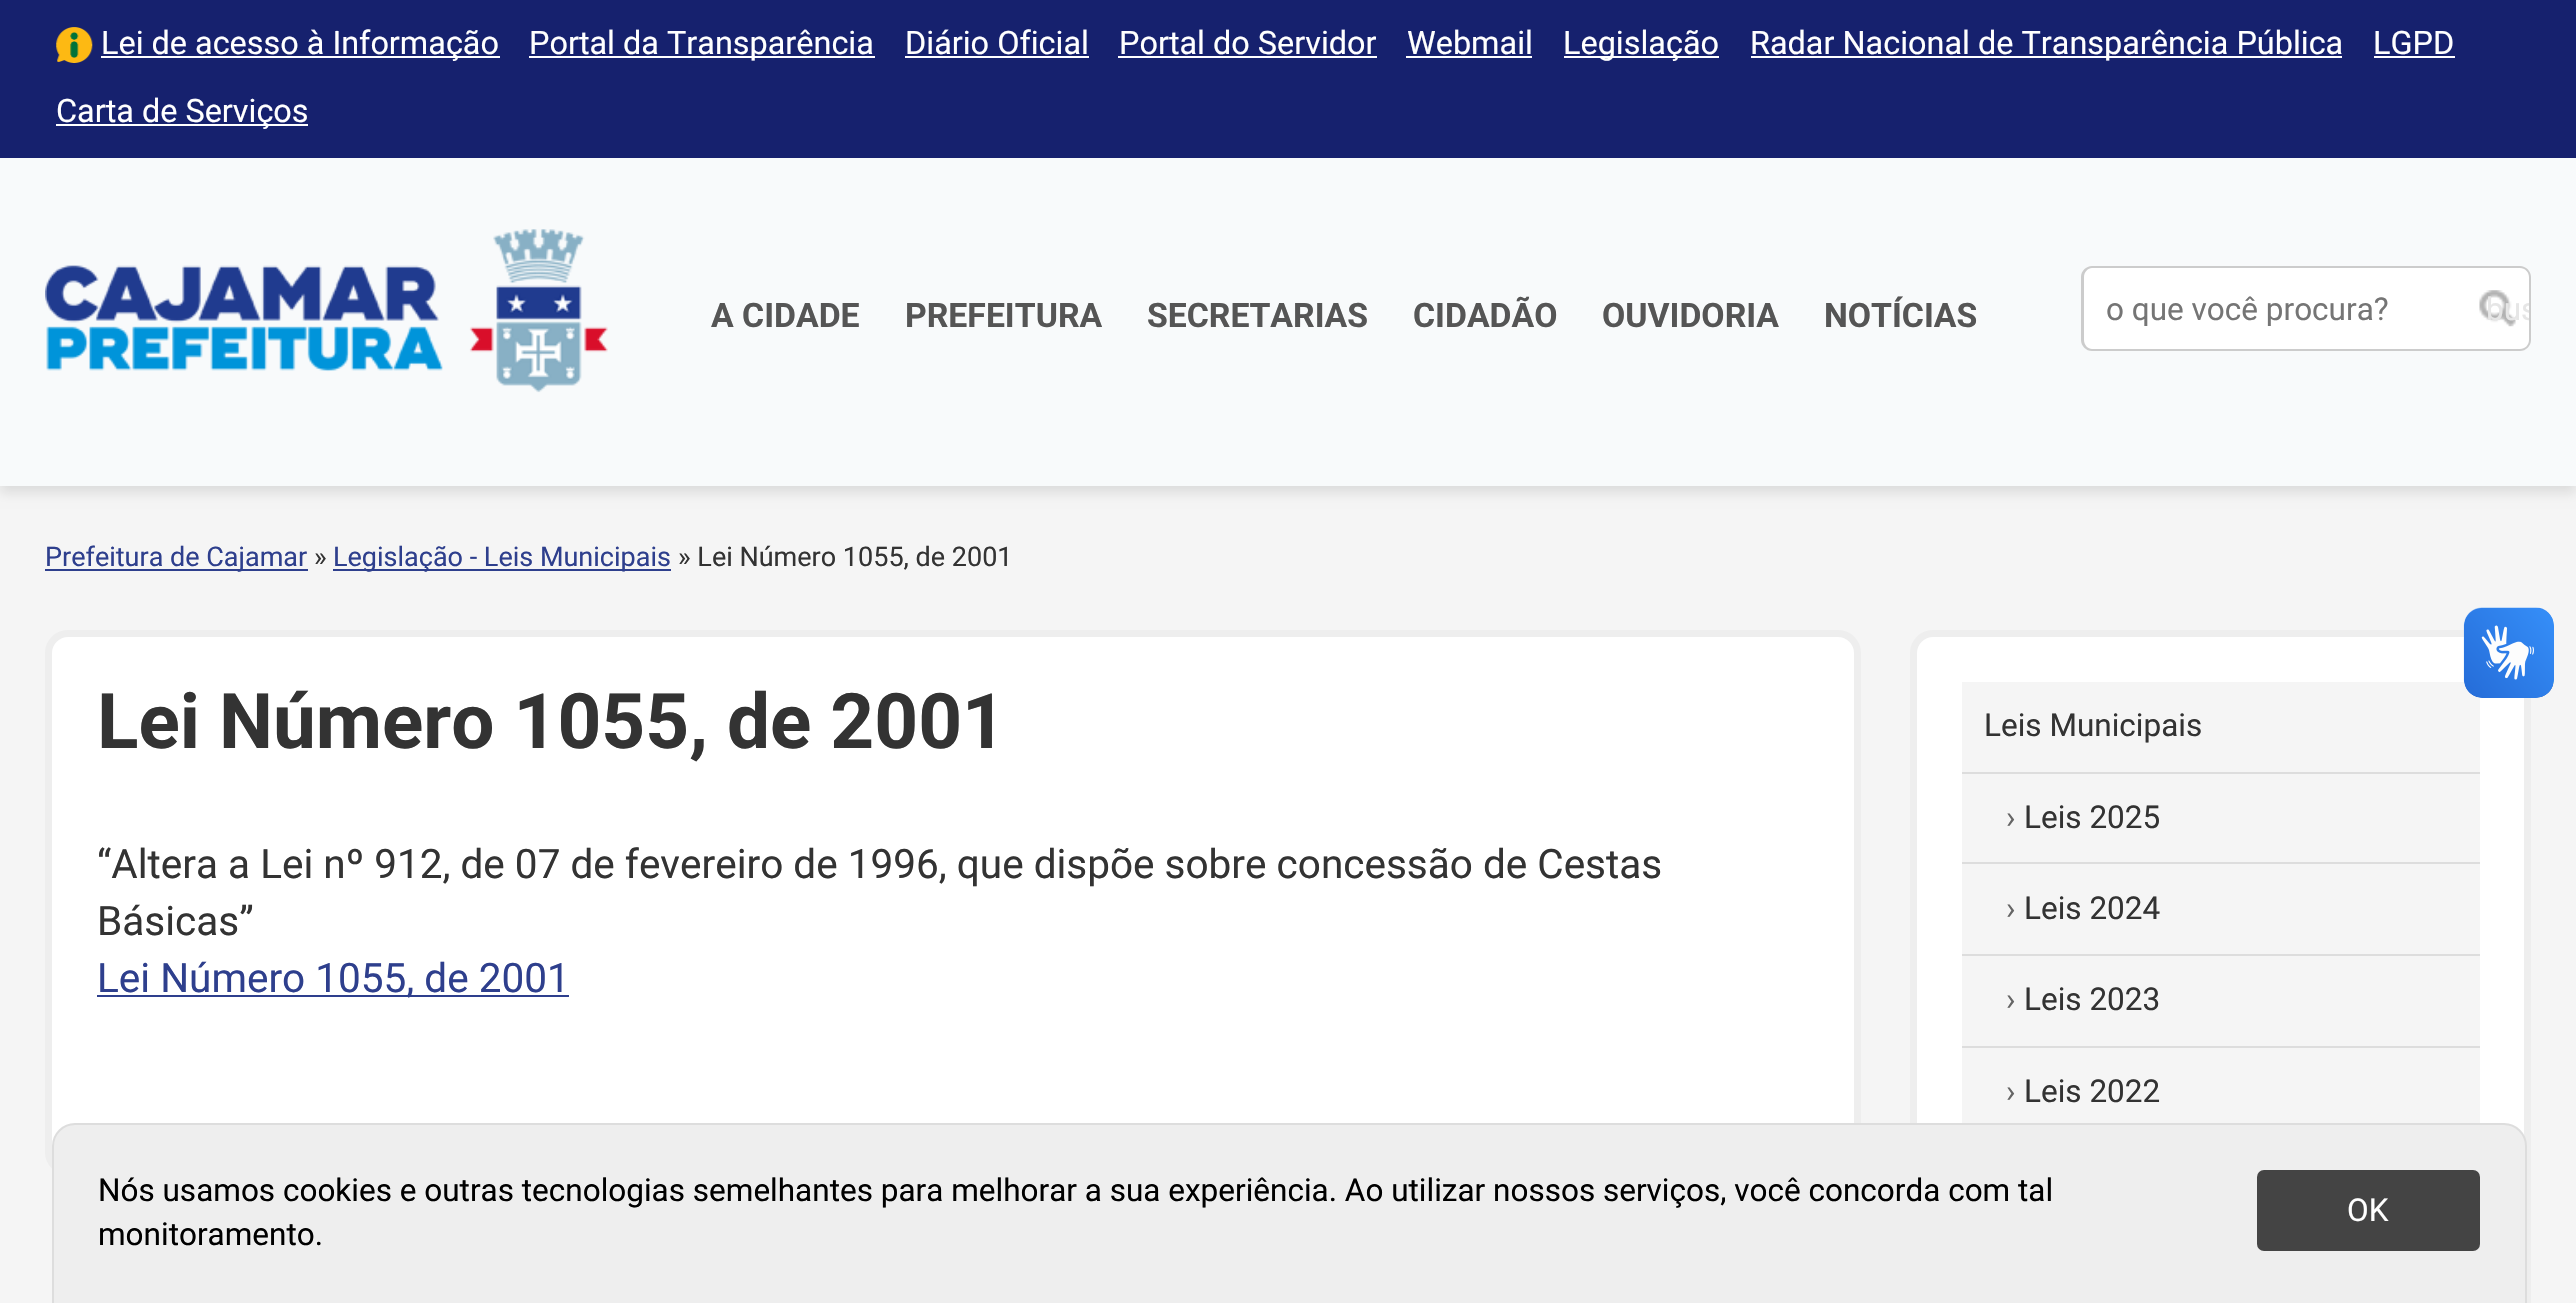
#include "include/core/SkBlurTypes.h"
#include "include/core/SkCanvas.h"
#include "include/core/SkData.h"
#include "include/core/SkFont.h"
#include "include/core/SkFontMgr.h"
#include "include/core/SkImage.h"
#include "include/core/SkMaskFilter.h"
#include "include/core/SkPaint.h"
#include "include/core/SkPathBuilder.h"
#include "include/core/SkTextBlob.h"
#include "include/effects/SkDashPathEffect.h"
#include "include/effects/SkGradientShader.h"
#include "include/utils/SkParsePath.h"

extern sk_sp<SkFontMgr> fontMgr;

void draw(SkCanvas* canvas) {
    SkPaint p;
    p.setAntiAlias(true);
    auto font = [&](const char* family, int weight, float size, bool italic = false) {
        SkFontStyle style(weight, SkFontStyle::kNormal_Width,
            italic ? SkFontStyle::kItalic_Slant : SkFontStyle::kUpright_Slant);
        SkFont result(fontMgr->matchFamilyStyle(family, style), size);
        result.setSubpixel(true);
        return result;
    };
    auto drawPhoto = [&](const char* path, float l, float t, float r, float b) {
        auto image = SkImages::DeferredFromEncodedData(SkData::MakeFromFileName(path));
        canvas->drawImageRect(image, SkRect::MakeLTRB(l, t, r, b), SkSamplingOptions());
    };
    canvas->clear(0xFFF5F5F5);
    p.setColor(0x1A000000);
    p.setMaskFilter(SkMaskFilter::MakeBlur(kNormal_SkBlurStyle, 5.5f));
    canvas->drawRect(SkRect::MakeLTRB(0, 164, 2576, 493), p);
    p.setMaskFilter(nullptr);
    p.setColor(0xFF16216E);
    canvas->drawRect(SkRect::MakeLTRB(0, 0, 2576, 158), p);
    drawPhoto("media/1.png", 56, 27, 93, 63);
    p.setColor(0xFFFFFFFF);
    canvas->drawRect(SkRect::MakeLTRB(101, 56, 500, 58), p);
    auto font1 = font("Roboto", 400, 32.4f);
    canvas->drawString("Lei de acesso à Informação", 101, 54, font1, p);
    canvas->drawRect(SkRect::MakeLTRB(529, 56, 875, 58), p);
    canvas->drawString("Portal da Transparência", 529, 54, font1, p);
    canvas->drawString("Diário Oficial", 905, 54, font1, p);
    canvas->drawRect(SkRect::MakeLTRB(905, 56, 1089, 58), p);
    canvas->drawString("Portal do Servidor", 1119, 54, font1, p);
    canvas->drawRect(SkRect::MakeLTRB(1118, 56, 1377, 58), p);
    canvas->drawString("Webmail", 1407, 54, font1, p);
    canvas->drawRect(SkRect::MakeLTRB(1406, 56, 1532, 58), p);
    canvas->drawRect(SkRect::MakeLTRB(1564, 56, 1719, 58), p);
    canvas->drawString("Legislação", 1563, 54, font1, p);
    canvas->drawRect(SkRect::MakeLTRB(1751, 56, 2342, 58), p);
    canvas->drawString("Radar Nacional de Transparência Pública", 1750, 54, font1, p);
    canvas->drawString("LGPD", 2373, 54, font1, p);
    canvas->drawRect(SkRect::MakeLTRB(2374, 56, 2455, 58), p);
    canvas->drawRect(SkRect::MakeLTRB(56, 124, 308, 126), p);
    canvas->drawString("Carta de Serviços", 56, 122, font1, p);
    p.setColor(0xFFF8FAFB);
    canvas->drawRect(SkRect::MakeLTRB(0, 158, 2576, 486), p);
    drawPhoto("media/2.png", 45, 229, 608, 393);
    auto font2 = font("Roboto", 700, 33.75f);
    p.setColor(0xFF555555);
    {
        const struct { const char* s; float x, y; } items[] = {
            {"A CIDADE", 711, 327},
            {"PREFEITURA", 905, 327},
            {"SECRETARIAS", 1147, 327},
            {"CIDADÃO", 1413, 327},
            {"OUVIDORIA", 1602, 327},
            {"NOTÍCIAS", 1824, 327},
        };
        for (auto [s, x, y] : items) {
            canvas->drawString(s, x, y, font2, p);
        }
    }
    p.setColor(0xFFFFFFFF);
    canvas->drawPath(SkPathBuilder().moveTo(2092, 266).lineTo(2464, 266).lineTo(2464, 351).lineTo(2092, 351).cubicTo(2086, 351, 2081, 346, 2081, 340).lineTo(2081, 277).cubicTo(2081, 271, 2086, 266, 2092, 266).close().detach(), p);
    p.setColor(0xFFCCCCCC);
    canvas->drawPath(SkPathBuilder(SkPathFillType::kEvenOdd).moveTo(2092, 266).lineTo(2464, 266).lineTo(2464, 351).lineTo(2092, 351).cubicTo(2086, 351, 2081, 346, 2081, 340).lineTo(2081, 277).cubicTo(2081, 271, 2086, 266, 2092, 266).close().moveTo(2092, 268).lineTo(2464, 268).lineTo(2464, 349).lineTo(2092, 349).cubicTo(2088, 349, 2084, 345, 2084, 340).lineTo(2084, 277).cubicTo(2084, 272, 2088, 268, 2092, 268).close().detach(), p);
    canvas->save();
    canvas->clipRect(SkRect::MakeLTRB(2106, 290, 2441, 326));
    auto font3 = font("Roboto", 400, 31.5f);
    p.setColor(0xFF757575);
    canvas->drawString("o que você procura?", 2106, 320, font3, p);
    canvas->restore();
    p.setColor(0xFFFFFFFF);
    canvas->drawPath(SkPathBuilder().moveTo(2464, 266).lineTo(2520, 266).cubicTo(2526, 266, 2531, 271, 2531, 277).lineTo(2531, 340).cubicTo(2531, 346, 2526, 351, 2520, 351).lineTo(2464, 351).close().detach(), p);
    drawPhoto("media/3.png", 2479, 290, 2516, 327);
    p.setColor(0xFFCCCCCC);
    canvas->drawPath(SkPathBuilder(SkPathFillType::kEvenOdd).moveTo(2464, 266).lineTo(2520, 266).cubicTo(2526, 266, 2531, 271, 2531, 277).lineTo(2531, 340).cubicTo(2531, 346, 2526, 351, 2520, 351).lineTo(2464, 351).close().moveTo(2464, 268).lineTo(2520, 268).cubicTo(2525, 268, 2529, 272, 2529, 277).lineTo(2529, 340).cubicTo(2529, 345, 2525, 349, 2520, 349).lineTo(2464, 349).close().detach(), p);
    canvas->save();
    canvas->clipPath(SkPathBuilder().moveTo(2464, 268).lineTo(2520, 268).cubicTo(2525, 268, 2529, 272, 2529, 277).lineTo(2529, 340).cubicTo(2529, 345, 2525, 349, 2520, 349).lineTo(2464, 349).close().detach(), true);
    p.setColor(0xFFE6E6E6);
    canvas->drawString("bus", 2486, 320, font3, p);
    canvas->restore();
    p.setColor(0xFF2E3F8D);
    canvas->drawRect(SkRect::MakeLTRB(45, 569, 308, 571), p);
    auto font4 = font("Roboto", 400, 27);
    canvas->drawString("Prefeitura de Cajamar", 45, 566, font4, p);
    p.setColor(0xFF333333);
    canvas->drawString("»", 314, 566, font4, p);
    p.setColor(0xFF2E3F8D);
    canvas->drawRect(SkRect::MakeLTRB(333, 569, 671, 571), p);
    canvas->drawString("Legislação - Leis Municipais", 333, 566, font4, p);
    p.setColor(0xFF333333);
    canvas->drawString("» Lei Número 1055, de 2001", 678, 566, font4, p);
    p.setColor(0xFFFFFFFF);
    canvas->drawRoundRect(SkRect::MakeLTRB(48.5f, 633.5f, 1857.5f, 1171.5f), 19.5f, 19.5f, p);
    p.setStyle(SkPaint::kStroke_Style);
    p.setStrokeWidth(7);
    p.setColor(0xFFEEEEEE);
    canvas->drawRoundRect(SkRect::MakeLTRB(48.5f, 633.5f, 1857.5f, 1171.5f), 19.5f, 19.5f, p);
    auto font5 = font("Roboto", 700, 76.5f);
    p.setStyle(SkPaint::kFill_Style);
    p.setColor(0xFF333333);
    canvas->drawString("Lei Número 1055, de 2001", 97, 748, font5, p);
    auto font6 = font("Roboto", 400, 40.5f);
    canvas->drawString("“Altera a Lei nº 912, de 07 de fevereiro de 1996, que dispõe sobre concessão de Cestas", 97, 878, font6, p);
    canvas->drawString("Básicas”", 97, 935, font6, p);
    p.setColor(0xFF2E3F8D);
    canvas->drawRect(SkRect::MakeLTRB(97, 995, 569, 997), p);
    canvas->drawString("Lei Número 1055, de 2001", 97, 992, font6, p);
    p.setColor(0xFFFFFFFF);
    canvas->drawRoundRect(SkRect::MakeLTRB(1913.5f, 633.5f, 2527.5f, 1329.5f), 19.5f, 19.5f, p);
    p.setStyle(SkPaint::kStroke_Style);
    p.setColor(0xFFEEEEEE);
    canvas->drawRoundRect(SkRect::MakeLTRB(1913.5f, 633.5f, 2527.5f, 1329.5f), 19.5f, 19.5f, p);
    p.setStyle(SkPaint::kFill_Style);
    p.setColor(0xFFF5F5F5);
    canvas->drawRect(SkRect::MakeLTRB(1962, 682, 2480, 1123), p);
    p.setColor(0xFFDDDDDD);
    canvas->drawRect(SkRect::MakeLTRB(1962, 772, 2480, 774), p);
    p.setColor(0xFF333333);
    canvas->drawString("Leis Municipais", 1984, 736, font3, p);
    p.setColor(0xFFDDDDDD);
    canvas->drawRect(SkRect::MakeLTRB(1962, 862, 2480, 864), p);
    p.setColor(0xFF666666);
    canvas->drawString("›", 2006, 828, font3, p);
    p.setColor(0xFF333333);
    canvas->drawString("Leis 2025", 2024, 828, font3, p);
    p.setColor(0xFFDDDDDD);
    canvas->drawRect(SkRect::MakeLTRB(1962, 954, 2480, 956), p);
    p.setColor(0xFF666666);
    canvas->drawString("›", 2006, 919, font3, p);
    p.setColor(0xFF333333);
    canvas->drawString("Leis 2024", 2024, 919, font3, p);
    p.setColor(0xFFDDDDDD);
    canvas->drawRect(SkRect::MakeLTRB(1962, 1046, 2480, 1048), p);
    p.setColor(0xFF666666);
    canvas->drawString("›", 2006, 1010, font3, p);
    p.setColor(0xFF333333);
    canvas->drawString("Leis 2023", 2024, 1010, font3, p);
    p.setColor(0xFF666666);
    canvas->drawString("›", 2006, 1102, font3, p);
    p.setColor(0xFF333333);
    canvas->drawString("Leis 2022", 2024, 1102, font3, p);
    drawPhoto("media/4.png", 2463, 607, 2554, 698);
    drawPhoto("media/5.png", 2464, 608, 2554, 698);
    p.setColor(0xFFEEEEEE);
    canvas->drawPath(SkPathBuilder().moveTo(75, 1124).lineTo(2504, 1124).cubicTo(2516, 1124, 2526, 1134, 2526, 1146).lineTo(2526, 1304).lineTo(53, 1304).lineTo(53, 1146).cubicTo(53, 1134, 63, 1124, 75, 1124).close().detach(), p);
    p.setStyle(SkPaint::kStroke_Style);
    p.setStrokeWidth(2);
    p.setColor(0xFFDDDDDD);
    canvas->drawPath(SkPathBuilder().moveTo(75, 1124).lineTo(2504, 1124).cubicTo(2516, 1124, 2526, 1134, 2526, 1146).lineTo(2526, 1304).lineTo(53, 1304).lineTo(53, 1146).cubicTo(53, 1134, 63, 1124, 75, 1124).close().detach(), p);
    p.setStyle(SkPaint::kFill_Style);
    p.setColor(0xFF000000);
    canvas->drawString("Nós usamos cookies e outras tecnologias semelhantes para melhorar a sua experiência. Ao utilizar nossos serviços, você concorda com tal", 98, 1201, font3, p);
    canvas->drawString("monitoramento.", 98, 1245, font3, p);
    p.setColor(0xFF444444);
    canvas->drawRoundRect(SkRect::MakeLTRB(2257, 1170, 2480, 1251), 7, 7, p);
    p.setColor(0xFFFFFFFF);
    canvas->drawString("OK", 2347, 1221, font3, p);
}
